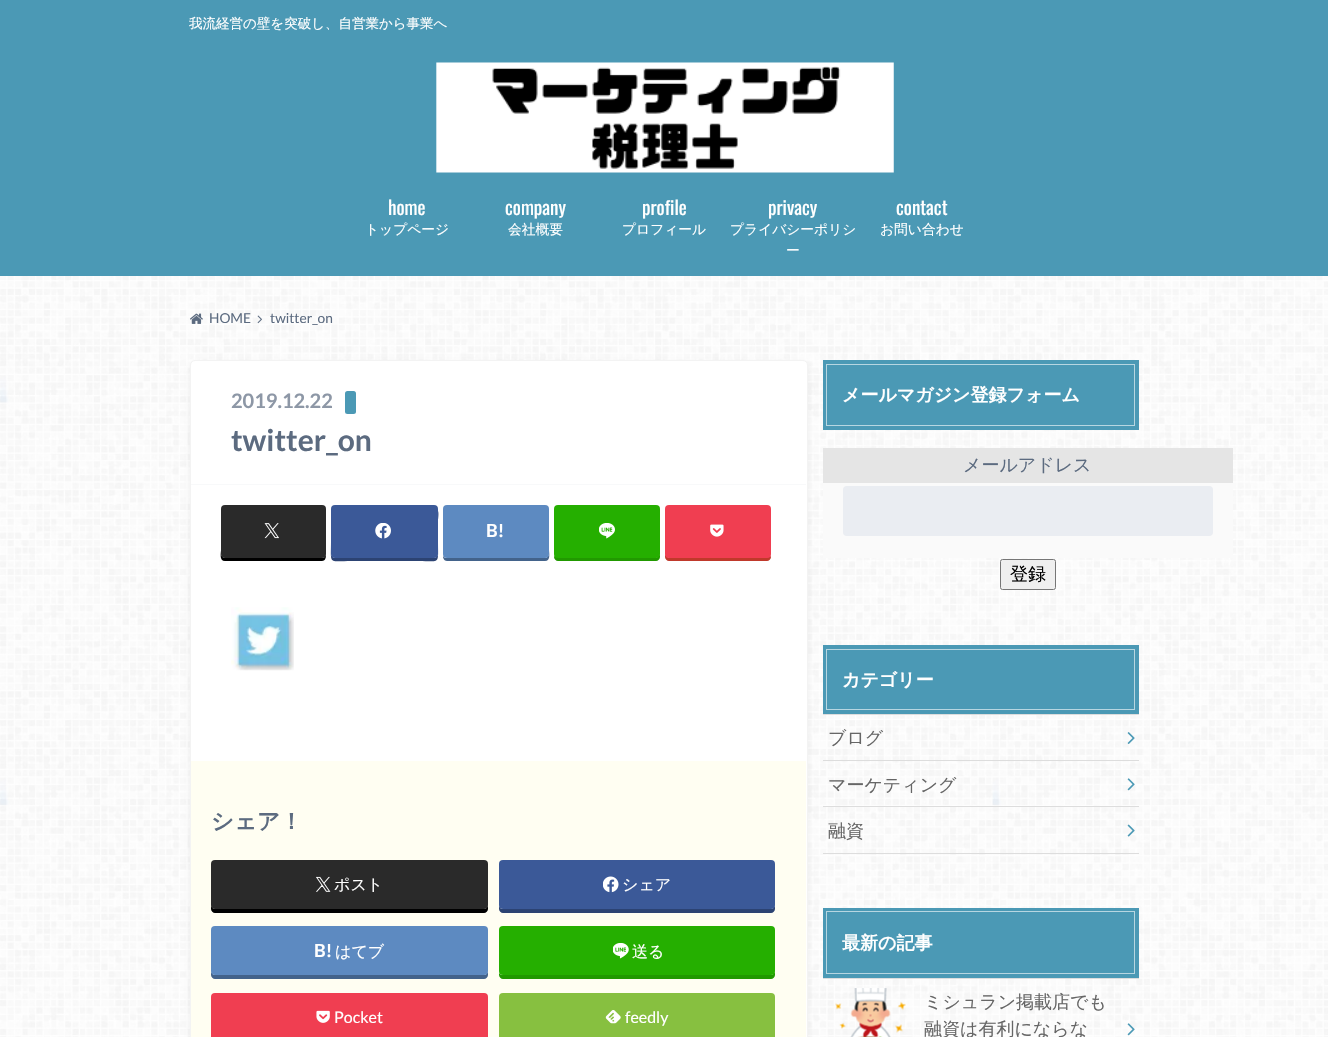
#include "include/core/SkBlurTypes.h"
#include "include/core/SkCanvas.h"
#include "include/core/SkData.h"
#include "include/core/SkFont.h"
#include "include/core/SkFontMgr.h"
#include "include/core/SkImage.h"
#include "include/core/SkMaskFilter.h"
#include "include/core/SkPaint.h"
#include "include/core/SkPathBuilder.h"
#include "include/core/SkTextBlob.h"
#include "include/effects/SkDashPathEffect.h"
#include "include/effects/SkGradientShader.h"
#include "include/utils/SkParsePath.h"

extern sk_sp<SkFontMgr> fontMgr;

void draw(SkCanvas* canvas) {
    SkPaint p;
    p.setAntiAlias(true);
    auto font = [&](const char* family, int weight, float size, bool italic = false) {
        SkFontStyle style(weight, SkFontStyle::kNormal_Width,
            italic ? SkFontStyle::kItalic_Slant : SkFontStyle::kUpright_Slant);
        SkFont result(fontMgr->matchFamilyStyle(family, style), size);
        result.setSubpixel(true);
        return result;
    };
    auto drawPhoto = [&](const char* path, float l, float t, float r, float b) {
        auto image = SkImages::DeferredFromEncodedData(SkData::MakeFromFileName(path));
        canvas->drawImageRect(image, SkRect::MakeLTRB(l, t, r, b), SkSamplingOptions());
    };
    canvas->clear(0xFFFFFFFF);
    drawPhoto("media/1.png", 0, 276, 1328, 1037);
    p.setColor(0xFF4B99B5);
    canvas->drawRect(SkRect::MakeLTRB(0, 0, 1328, 276), p);
    auto font1 = font("WenQuanYi Zen Hei", 500, 13.5f);
    p.setColor(0xFFFFFFFF);
    canvas->drawString("我流経営の壁を突破し、自営業から事業へ", 189, 28, font1, p);
    drawPhoto("media/2.png", 436, 62, 894, 173);
    auto font2 = font("Oswald", 400, 19);
    canvas->drawString("home", 388, 215, font2, p);
    auto font3 = font("WenQuanYi Zen Hei", 500, 13.75f);
    canvas->drawString("トップページ", 365, 234, font3, p);
    canvas->drawString("company", 505, 215, font2, p);
    canvas->drawString("会社概要", 508, 234, font3, p);
    canvas->drawString("profile", 642, 215, font2, p);
    canvas->drawString("プロフィール", 622, 234, font3, p);
    canvas->drawString("privacy", 768, 215, font2, p);
    canvas->drawString("プライバシーポリシ", 730, 234, font3, p);
    canvas->drawString("ー", 786, 255, font3, p);
    canvas->drawString("contact", 896, 215, font2, p);
    canvas->drawString("お問い合わせ", 880, 234, font3, p);
    drawPhoto("media/3.png", 190, 313, 203, 324);
    auto font4 = font("Lato", 400, 13.75f);
    p.setColor(0xFF5C6B80);
    canvas->drawString("HOME", 209, 323, font4, p);
    drawPhoto("media/4.png", 257, 315, 262, 324);
    canvas->drawString("twitter_on", 270, 323, font4, p);
    p.setColor(0x268A8A8A);
    p.setMaskFilter(SkMaskFilter::MakeBlur(kNormal_SkBlurStyle, 3));
    canvas->drawRoundRect(SkRect::MakeLTRB(190, 363, 808, 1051), 5, 5, p);
    p.setMaskFilter(nullptr);
    p.setColor(0xFFFFFFFF);
    canvas->drawRoundRect(SkRect::MakeLTRB(190.5f, 360.5f, 807.5f, 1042.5f), 4.5f, 4.5f, p);
    p.setStyle(SkPaint::kStroke_Style);
    p.setStrokeWidth(1);
    p.setColor(0xFFF3F3F3);
    canvas->drawRoundRect(SkRect::MakeLTRB(190.5f, 360.5f, 807.5f, 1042.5f), 4.5f, 4.5f, p);
    p.setStyle(SkPaint::kFill_Style);
    p.setColor(0xFFF8F9FA);
    canvas->drawRect(SkRect::MakeLTRB(191, 484, 806, 485), p);
    auto font5 = font("Lato", 700, 20);
    p.setColor(0xFF8D97A6);
    canvas->drawString("2019.12.22", 231, 408, font5, p);
    p.setColor(0xFF4B99B5);
    canvas->drawRoundRect(SkRect::MakeLTRB(345, 391, 356, 414), 2.5f, 2.5f, p);
    auto font6 = font("Lato", 700, 30);
    p.setColor(0xFF5C6B80);
    canvas->drawString("twitter_on", 231, 451, font6, p);
    p.setColor(0xFF000000);
    canvas->drawPath(SkPathBuilder().moveTo(221, 512).lineTo(221, 550).cubicTo(221, 553, 219, 561, 225, 561).lineTo(322, 561).cubicTo(325, 561, 326, 558, 326, 555).cubicTo(325, 557, 324, 558, 322, 558).lineTo(225, 558).cubicTo(223, 558, 221, 556, 221, 554).close().detach(), p);
    p.setColor(0xFF2A2A2A);
    canvas->drawRoundRect(SkRect::MakeLTRB(221, 505, 326, 558), 4, 4, p);
    drawPhoto("media/5.png", 264, 523, 279, 539);
    p.setColor(0xFF2C4373);
    canvas->drawPath(SkPathBuilder().moveTo(331, 512).lineTo(331, 542).cubicTo(331, 565, 328, 561, 352, 561).lineTo(418, 561).cubicTo(441, 561, 438, 565, 438, 542).lineTo(438, 520).cubicTo(438, 520, 439, 513, 438, 511).lineTo(438, 554).cubicTo(438, 556, 436, 558, 434, 558).lineTo(335, 558).cubicTo(333, 558, 331, 556, 331, 554).close().detach(), p);
    p.setColor(0xFF3B5998);
    canvas->drawRoundRect(SkRect::MakeLTRB(331, 505, 438, 558), 4, 4, p);
    drawPhoto("media/6.png", 375, 523, 391, 539);
    p.setColor(0xFF43638B);
    canvas->drawPath(SkPathBuilder().moveTo(443, 556).cubicTo(443, 558, 444, 561, 447, 561).lineTo(545, 561).cubicTo(551, 561, 549, 553, 549, 550).lineTo(549, 512).lineTo(549, 554).cubicTo(549, 556, 547, 558, 545, 558).lineTo(446, 558).cubicTo(445, 558, 444, 557, 443, 556).close().detach(), p);
    p.setColor(0xFF5D8AC1);
    canvas->drawRoundRect(SkRect::MakeLTRB(443, 505, 549, 558), 4, 4, p);
    auto font7 = font("Lato", 700, 18);
    p.setColor(0xFFFFFFFF);
    canvas->drawString("B!", 486, 537, font7, p);
    p.setColor(0xFF219900);
    canvas->drawPath(SkPathBuilder().moveTo(554, 555).lineTo(554, 557).cubicTo(554, 559, 556, 561, 558, 561).lineTo(656, 561).cubicTo(658, 561, 660, 559, 660, 557).lineTo(660, 554).lineTo(659, 556).lineTo(656, 558).lineTo(556, 557).cubicTo(555, 557, 554, 556, 554, 555).close().detach(), p);
    p.setColor(0xFF25AF00);
    canvas->drawRoundRect(SkRect::MakeLTRB(554, 505, 660, 558), 4, 4, p);
    drawPhoto("media/7.png", 599, 523, 615, 539);
    p.setColor(0xFFC0392B);
    canvas->drawPath(SkPathBuilder().moveTo(665, 554).lineTo(665, 557).cubicTo(665, 559, 667, 561, 669, 561).lineTo(767, 561).cubicTo(769, 561, 771, 559, 771, 557).lineTo(771, 555).cubicTo(771, 556, 770, 557, 769, 557).lineTo(669, 558).lineTo(666, 556).close().detach(), p);
    p.setColor(0xFFF03E51);
    canvas->drawRoundRect(SkRect::MakeLTRB(665, 505, 771, 558), 4, 4, p);
    drawPhoto("media/8.png", 710, 524, 724, 537);
    drawPhoto("media/9.png", 231, 607, 294, 671);
    p.setColor(0xFFFFFEF2);
    canvas->drawRect(SkRect::MakeLTRB(191, 761, 806, 1037), p);
    auto font8 = font("WenQuanYi Zen Hei", 700, 22.5f);
    p.setColor(0xFF5C6B80);
    canvas->drawString("シェア！", 211, 829, font8, p);
    p.setColor(0xFF000000);
    canvas->drawPath(SkPathBuilder().moveTo(211, 867).lineTo(211, 909).cubicTo(211, 911, 213, 913, 215, 913).lineTo(484, 913).cubicTo(486, 913, 488, 911, 488, 909).lineTo(488, 868).lineTo(488, 866).lineTo(488, 905).cubicTo(488, 907, 486, 909, 484, 909).lineTo(215, 909).cubicTo(213, 909, 211, 907, 211, 905).close().detach(), p);
    p.setColor(0xFF2A2A2A);
    canvas->drawRoundRect(SkRect::MakeLTRB(211, 860, 488, 909), 4, 4, p);
    drawPhoto("media/10.png", 316, 876, 331, 892);
    auto font9 = font("WenQuanYi Zen Hei", 500, 16);
    p.setColor(0xFFFFFFFF);
    canvas->drawString("ポスト", 334, 890, font9, p);
    p.setColor(0xFF2C4373);
    canvas->drawPath(SkPathBuilder().moveTo(499, 906).lineTo(499, 909).cubicTo(499, 911, 501, 913, 503, 913).lineTo(771, 913).cubicTo(773, 913, 775, 911, 775, 909).lineTo(775, 905).cubicTo(775, 907, 773, 909, 771, 909).lineTo(502, 909).cubicTo(501, 909, 500, 908, 499, 906).close().detach(), p);
    p.setColor(0xFF3B5998);
    canvas->drawRoundRect(SkRect::MakeLTRB(499, 860, 775, 909), 4, 4, p);
    drawPhoto("media/11.png", 603, 876, 619, 893);
    p.setColor(0xFFFFFFFF);
    canvas->drawString("シェア", 622, 890, font9, p);
    p.setColor(0xFF43638B);
    canvas->drawPath(SkPathBuilder().moveTo(211, 933).lineTo(211, 975).cubicTo(211, 977, 213, 979, 215, 979).lineTo(484, 979).cubicTo(486, 979, 488, 977, 488, 975).lineTo(488, 934).lineTo(488, 932).lineTo(488, 971).cubicTo(488, 973, 486, 975, 484, 975).lineTo(215, 975).cubicTo(213, 975, 211, 973, 211, 971).close().detach(), p);
    p.setColor(0xFF5D8AC1);
    canvas->drawRoundRect(SkRect::MakeLTRB(211, 926, 488, 975), 4, 4, p);
    p.setColor(0xFFFFFFFF);
    canvas->drawString("B!", 314, 957, font7, p);
    canvas->drawString("はてブ", 335, 957, font9, p);
    p.setColor(0xFF219900);
    canvas->drawPath(SkPathBuilder().moveTo(499, 973).lineTo(499, 975).cubicTo(499, 977, 501, 979, 503, 979).lineTo(771, 979).cubicTo(773, 979, 775, 977, 775, 975).lineTo(775, 971).cubicTo(775, 973, 773, 975, 771, 975).lineTo(502, 975).cubicTo(501, 975, 500, 974, 499, 973).close().detach(), p);
    p.setColor(0xFF25AF00);
    canvas->drawRoundRect(SkRect::MakeLTRB(499, 926, 775, 975), 4, 4, p);
    drawPhoto("media/12.png", 613, 943, 629, 959);
    p.setColor(0xFFFFFFFF);
    canvas->drawString("送る", 632, 957, font9, p);
    p.setColor(0xFFF03E51);
    canvas->drawRoundRect(SkRect::MakeLTRB(211, 993, 488, 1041), 4, 4, p);
    drawPhoto("media/13.png", 316, 1010, 330, 1023);
    auto font10 = font("Lato", 400, 16);
    p.setColor(0xFFFFFFFF);
    canvas->drawString("Pocket", 334, 1023, font10, p);
    p.setColor(0xFF87C040);
    canvas->drawRoundRect(SkRect::MakeLTRB(499, 993, 775, 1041), 4, 4, p);
    drawPhoto("media/14.png", 605, 1010, 621, 1024);
    p.setColor(0xFFFFFFFF);
    canvas->drawString("feedly", 625, 1023, font10, p);
    p.setColor(0xFF4B99B5);
    canvas->drawRect(SkRect::MakeLTRB(823, 360, 1139, 430), p);
    p.setStyle(SkPaint::kStroke_Style);
    p.setColor(0xFFB7D6E1);
    canvas->drawRect(SkRect::MakeLTRB(826.5f, 364.5f, 1134.5f, 425.5f), p);
    auto font11 = font("WenQuanYi Zen Hei", 700, 18);
    p.setStyle(SkPaint::kFill_Style);
    p.setColor(0xFFFFFFFF);
    canvas->drawString("メールマガジン登録フォーム", 842, 401, font11, p);
    p.setColor(0xFFE5E5E5);
    canvas->drawRect(SkRect::MakeLTRB(823, 448, 1233, 483), p);
    auto font12 = font("WenQuanYi Zen Hei", 500, 18);
    p.setColor(0xFF5C6B80);
    canvas->drawString("メールアドレス", 963, 471, font12, p);
    p.setColor(0xFFFAFAFA);
    canvas->drawRect(SkRect::MakeLTRB(823, 483, 1233, 558), p);
    p.setColor(0xFFEAEDF2);
    canvas->drawRoundRect(SkRect::MakeLTRB(843, 486, 1213, 536), 4, 4, p);
    p.setColor(0xFFEFEFEF);
    canvas->drawRoundRect(SkRect::MakeLTRB(1000.5f, 559.5f, 1055.5f, 589.5f), 2, 2, p);
    p.setStyle(SkPaint::kStroke_Style);
    p.setColor(0xFF767676);
    canvas->drawRoundRect(SkRect::MakeLTRB(1000.5f, 559.5f, 1055.5f, 589.5f), 2, 2, p);
    p.setStyle(SkPaint::kFill_Style);
    p.setColor(0xFF000000);
    canvas->drawString("登録", 1010, 580, font12, p);
    p.setColor(0xFF4B99B5);
    canvas->drawRect(SkRect::MakeLTRB(823, 645, 1139, 714), p);
    p.setStyle(SkPaint::kStroke_Style);
    p.setColor(0xFFB7D6E1);
    canvas->drawRect(SkRect::MakeLTRB(826.5f, 649.5f, 1134.5f, 709.5f), p);
    p.setStyle(SkPaint::kFill_Style);
    p.setColor(0xFFFFFFFF);
    canvas->drawString("カテゴリー", 842, 686, font11, p);
    p.setColor(0xFFDDDDDD);
    canvas->drawRect(SkRect::MakeLTRB(823, 714, 1139, 715), p);
    canvas->drawRect(SkRect::MakeLTRB(823, 760, 1139, 761), p);
    p.setColor(0xFF666666);
    canvas->drawString("ブログ", 828, 744, font12, p);
    drawPhoto("media/15.png", 1127, 732, 1135, 744);
    p.setColor(0xFFDDDDDD);
    canvas->drawRect(SkRect::MakeLTRB(823, 806, 1139, 807), p);
    p.setColor(0xFF666666);
    canvas->drawString("マーケティング", 828, 791, font12, p);
    drawPhoto("media/16.png", 1127, 778, 1135, 791);
    p.setColor(0xFFDDDDDD);
    canvas->drawRect(SkRect::MakeLTRB(823, 853, 1139, 854), p);
    p.setColor(0xFF666666);
    canvas->drawString("融資", 828, 837, font12, p);
    drawPhoto("media/17.png", 1127, 824, 1135, 837);
    p.setColor(0xFF4B99B5);
    canvas->drawRect(SkRect::MakeLTRB(823, 908, 1139, 978), p);
    p.setStyle(SkPaint::kStroke_Style);
    p.setColor(0xFFB7D6E1);
    canvas->drawRect(SkRect::MakeLTRB(826.5f, 911.5f, 1134.5f, 973.5f), p);
    p.setStyle(SkPaint::kFill_Style);
    p.setColor(0xFFFFFFFF);
    canvas->drawString("最新の記事", 842, 949, font11, p);
    p.setColor(0xFFDDDDDD);
    canvas->drawRect(SkRect::MakeLTRB(823, 978, 1139, 979), p);
    drawPhoto("media/18.png", 835, 988, 906, 1037);
    p.setColor(0xFF666666);
    canvas->drawString("ミシュラン掲載店でも", 924, 1008, font12, p);
    canvas->drawString("融資は有利にならな", 924, 1035, font12, p);
    drawPhoto("media/19.png", 1127, 1023, 1135, 1036);
}
